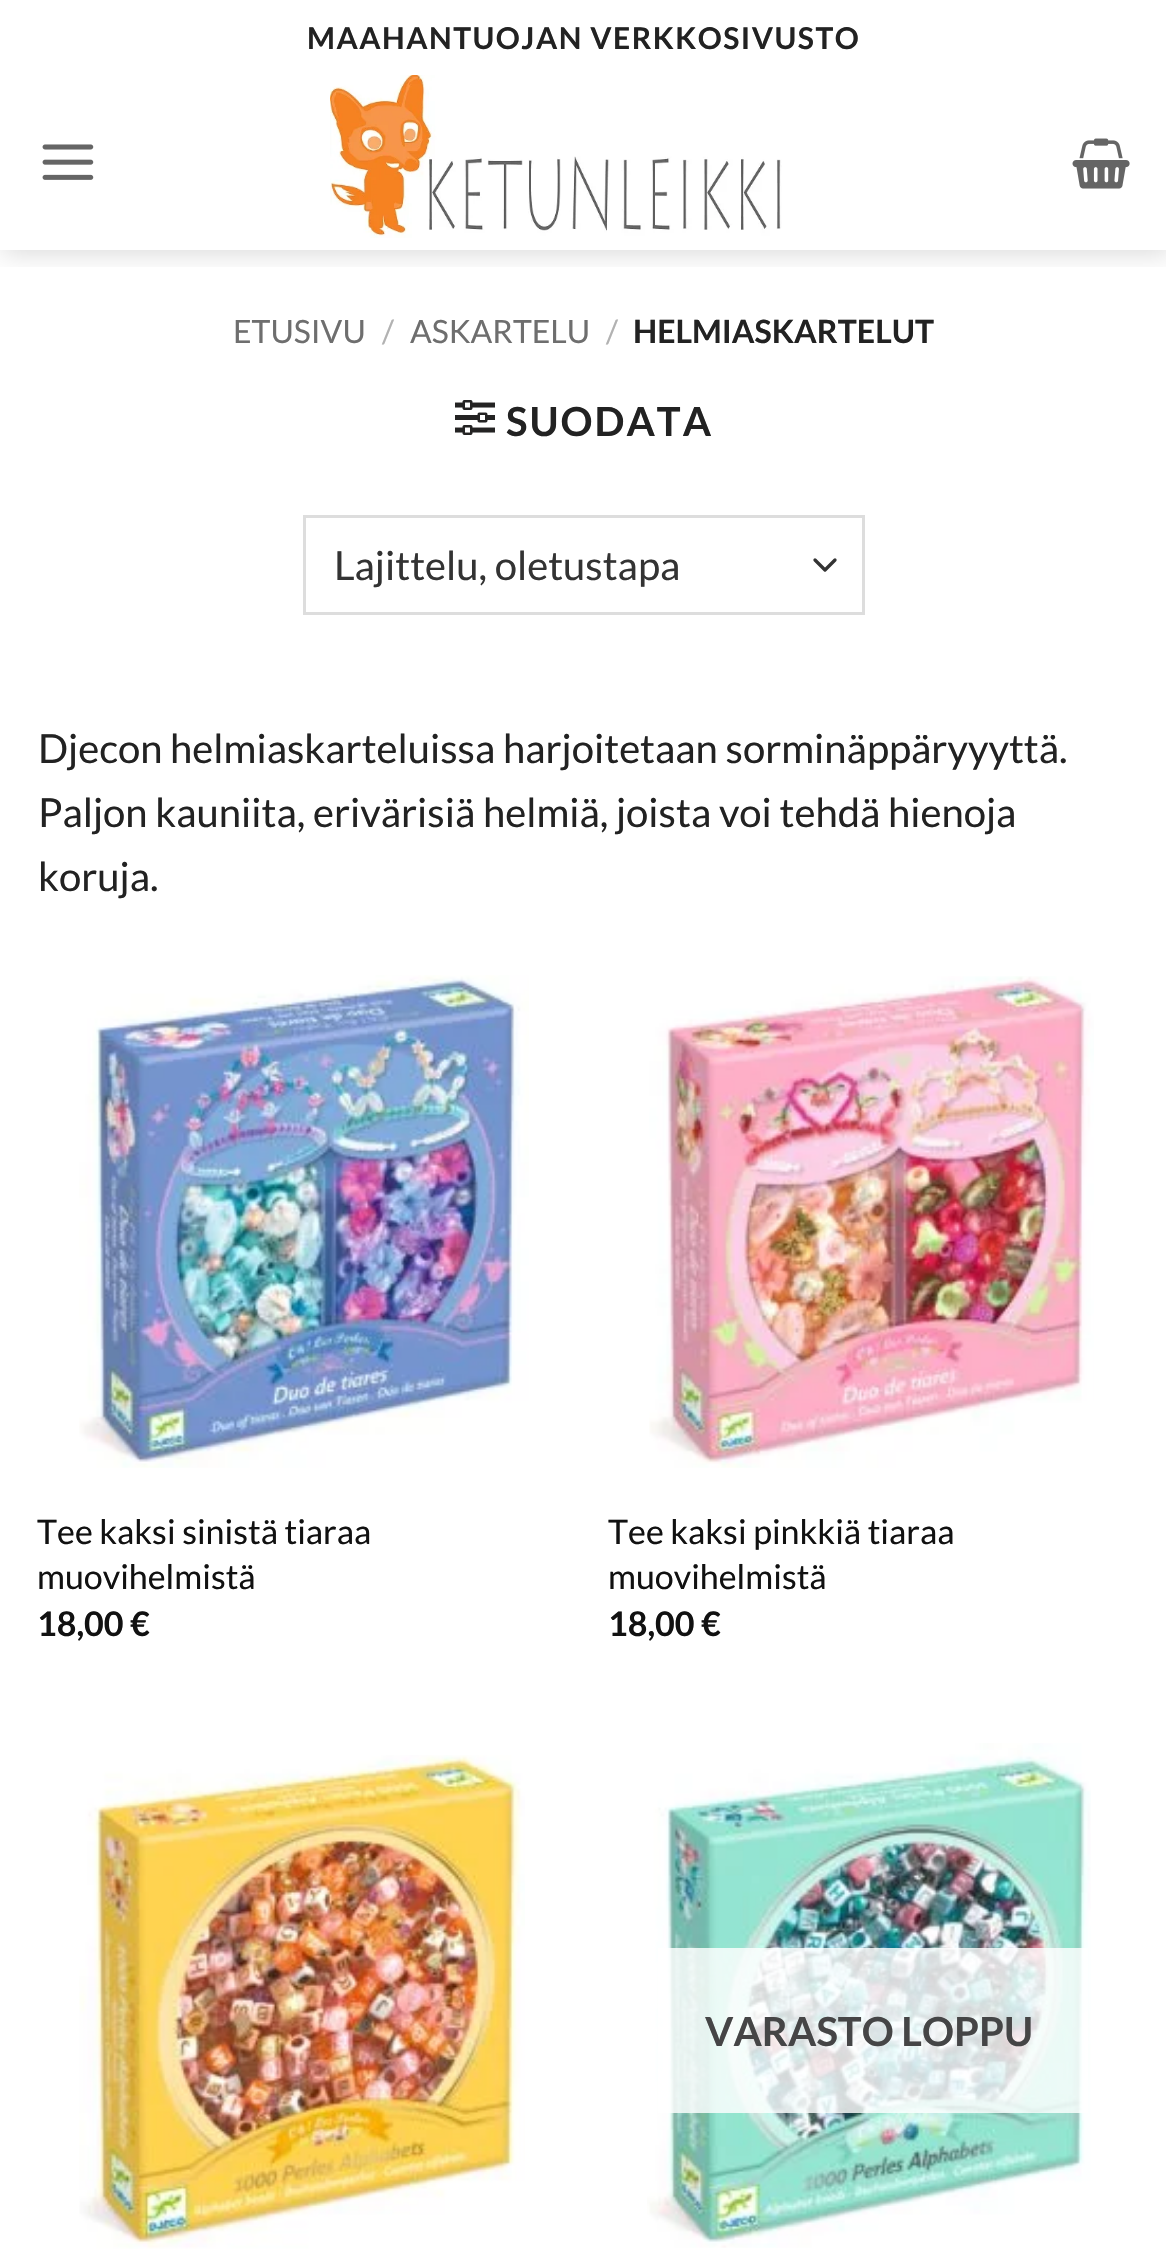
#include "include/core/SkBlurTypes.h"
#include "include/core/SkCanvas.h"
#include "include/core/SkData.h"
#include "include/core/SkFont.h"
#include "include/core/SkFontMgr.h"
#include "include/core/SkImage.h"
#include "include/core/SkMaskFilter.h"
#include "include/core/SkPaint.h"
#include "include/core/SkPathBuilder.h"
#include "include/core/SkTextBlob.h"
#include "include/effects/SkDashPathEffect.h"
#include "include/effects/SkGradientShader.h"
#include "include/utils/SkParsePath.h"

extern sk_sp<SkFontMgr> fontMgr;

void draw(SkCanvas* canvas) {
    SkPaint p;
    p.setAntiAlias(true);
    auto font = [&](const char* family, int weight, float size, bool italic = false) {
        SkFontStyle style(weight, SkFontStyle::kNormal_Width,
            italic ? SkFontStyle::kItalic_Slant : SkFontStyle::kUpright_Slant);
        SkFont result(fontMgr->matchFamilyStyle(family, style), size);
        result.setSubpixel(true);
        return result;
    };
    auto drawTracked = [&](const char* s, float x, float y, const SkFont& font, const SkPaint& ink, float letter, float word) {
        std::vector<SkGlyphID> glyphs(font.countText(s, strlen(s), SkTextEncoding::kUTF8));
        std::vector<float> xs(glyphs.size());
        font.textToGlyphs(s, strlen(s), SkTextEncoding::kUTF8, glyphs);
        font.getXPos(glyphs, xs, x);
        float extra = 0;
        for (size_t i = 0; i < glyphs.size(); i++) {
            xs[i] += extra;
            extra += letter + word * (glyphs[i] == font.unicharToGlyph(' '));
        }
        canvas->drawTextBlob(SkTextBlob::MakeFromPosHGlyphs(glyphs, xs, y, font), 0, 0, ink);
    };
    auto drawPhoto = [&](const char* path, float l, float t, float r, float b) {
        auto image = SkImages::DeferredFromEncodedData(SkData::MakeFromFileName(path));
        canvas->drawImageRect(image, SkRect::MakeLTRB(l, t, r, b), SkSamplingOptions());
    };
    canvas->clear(0xFFFFFFFF);
    canvas->save();
    canvas->clipRect(SkRect::MakeLTRB(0, 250, 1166, 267));
    p.setColor(0x26000000);
    p.setMaskFilter(SkMaskFilter::MakeBlur(kNormal_SkBlurStyle, 12.5f));
    canvas->drawRect(SkRect::MakeLTRB(3, 3, 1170, 253), p);
    p.setMaskFilter(nullptr);
    canvas->restore();
    auto font1 = font("Lato", 700, 30);
    p.setColor(0xFF222222);
    drawTracked("MAAHANTUOJAN VERKKOSIVUSTO", 307, 49, font1, p, 1.5f, 0);
    drawPhoto("media/1.png", 42, 144, 94, 180);
    drawPhoto("media/2.png", 330, 75, 782, 238);
    drawPhoto("media/3.png", 1072, 138, 1130, 189);
    auto font2 = font("Lato", 400, 32);
    p.setColor(0xFF6E6E6E);
    canvas->drawString("ETUSIVU", 233, 343, font2, p);
    p.setColor(0xFFB2B2B2);
    canvas->drawString("/", 382, 343, font2, p);
    p.setColor(0xFF6E6E6E);
    canvas->drawString("ASKARTELU", 410, 343, font2, p);
    p.setColor(0xFFB2B2B2);
    canvas->drawString("/", 606, 343, font2, p);
    auto font3 = font("Lato", 700, 32);
    p.setColor(0xFF222222);
    canvas->drawString("HELMIASKARTELUT", 633, 343, font3, p);
    drawPhoto("media/4.png", 455, 400, 495, 435);
    auto font4 = font("Lato", 700, 40);
    drawTracked("SUODATA", 506, 436, font4, p, 2, 0);
    p.setStyle(SkPaint::kStroke_Style);
    p.setStrokeWidth(3.3f);
    p.setStrokeCap(SkPaint::kRound_Cap);
    p.setStrokeJoin(SkPaint::kRound_Join);
    p.setColor(0xFF333333);
    canvas->drawPath(SkPathBuilder().moveTo(815, 560).lineTo(825, 570).lineTo(835, 560).detach(), p);
    p.setStrokeWidth(3);
    p.setStrokeCap(SkPaint::kButt_Cap);
    p.setStrokeJoin(SkPaint::kMiter_Join);
    p.setColor(0xFFDDDDDD);
    canvas->drawRect(SkRect::MakeLTRB(304.5f, 516.5f, 863.5f, 613.5f), p);
    auto font5 = font("Lato", 400, 40);
    p.setStyle(SkPaint::kFill_Style);
    p.setColor(0xFF333333);
    canvas->drawString("Lajittelu, oletustapa", 334, 580, font5, p);
    p.setColor(0xFF222222);
    {
        const struct { const char* s; float x, y; } items[] = {
            {"Djecon helmiaskarteluissa harjoitetaan sorminäppäryyyttä.", 38, 763},
            {"Paljon kauniita, erivärisiä helmiä, joista voi tehdä hienoja", 38, 827},
            {"koruja.", 38, 891},
        };
        for (auto [s, x, y] : items) {
            canvas->drawString(s, x, y, font5, p);
        }
    }
    drawPhoto("media/5.png", 79, 975, 529, 1468);
    auto font6 = font("Lato", 400, 34);
    p.setColor(0xFF111111);
    canvas->drawString("Tee kaksi sinistä tiaraa", 37, 1544, font6, p);
    canvas->drawString("muovihelmistä", 37, 1589, font6, p);
    auto font7 = font("Lato", 700, 34);
    canvas->drawString("18,00 €", 37, 1636, font7, p);
    drawPhoto("media/6.png", 649, 976, 1094, 1468);
    canvas->drawString("Tee kaksi pinkkiä tiaraa", 608, 1544, font6, p);
    canvas->drawString("muovihelmistä", 608, 1589, font6, p);
    canvas->drawString("18,00 €", 608, 1636, font7, p);
    drawPhoto("media/7.png", 79, 1755, 525, 2249);
    drawPhoto("media/8.png", 647, 1743, 1091, 2248);
    p.setColor(0xCFFFFFFF);
    canvas->drawRect(SkRect::MakeLTRB(658, 1948, 1088, 2113), p);
    p.setColor(0xFF454546);
    canvas->drawString("VARASTO LOPPU", 705, 2046, font4, p);
}
